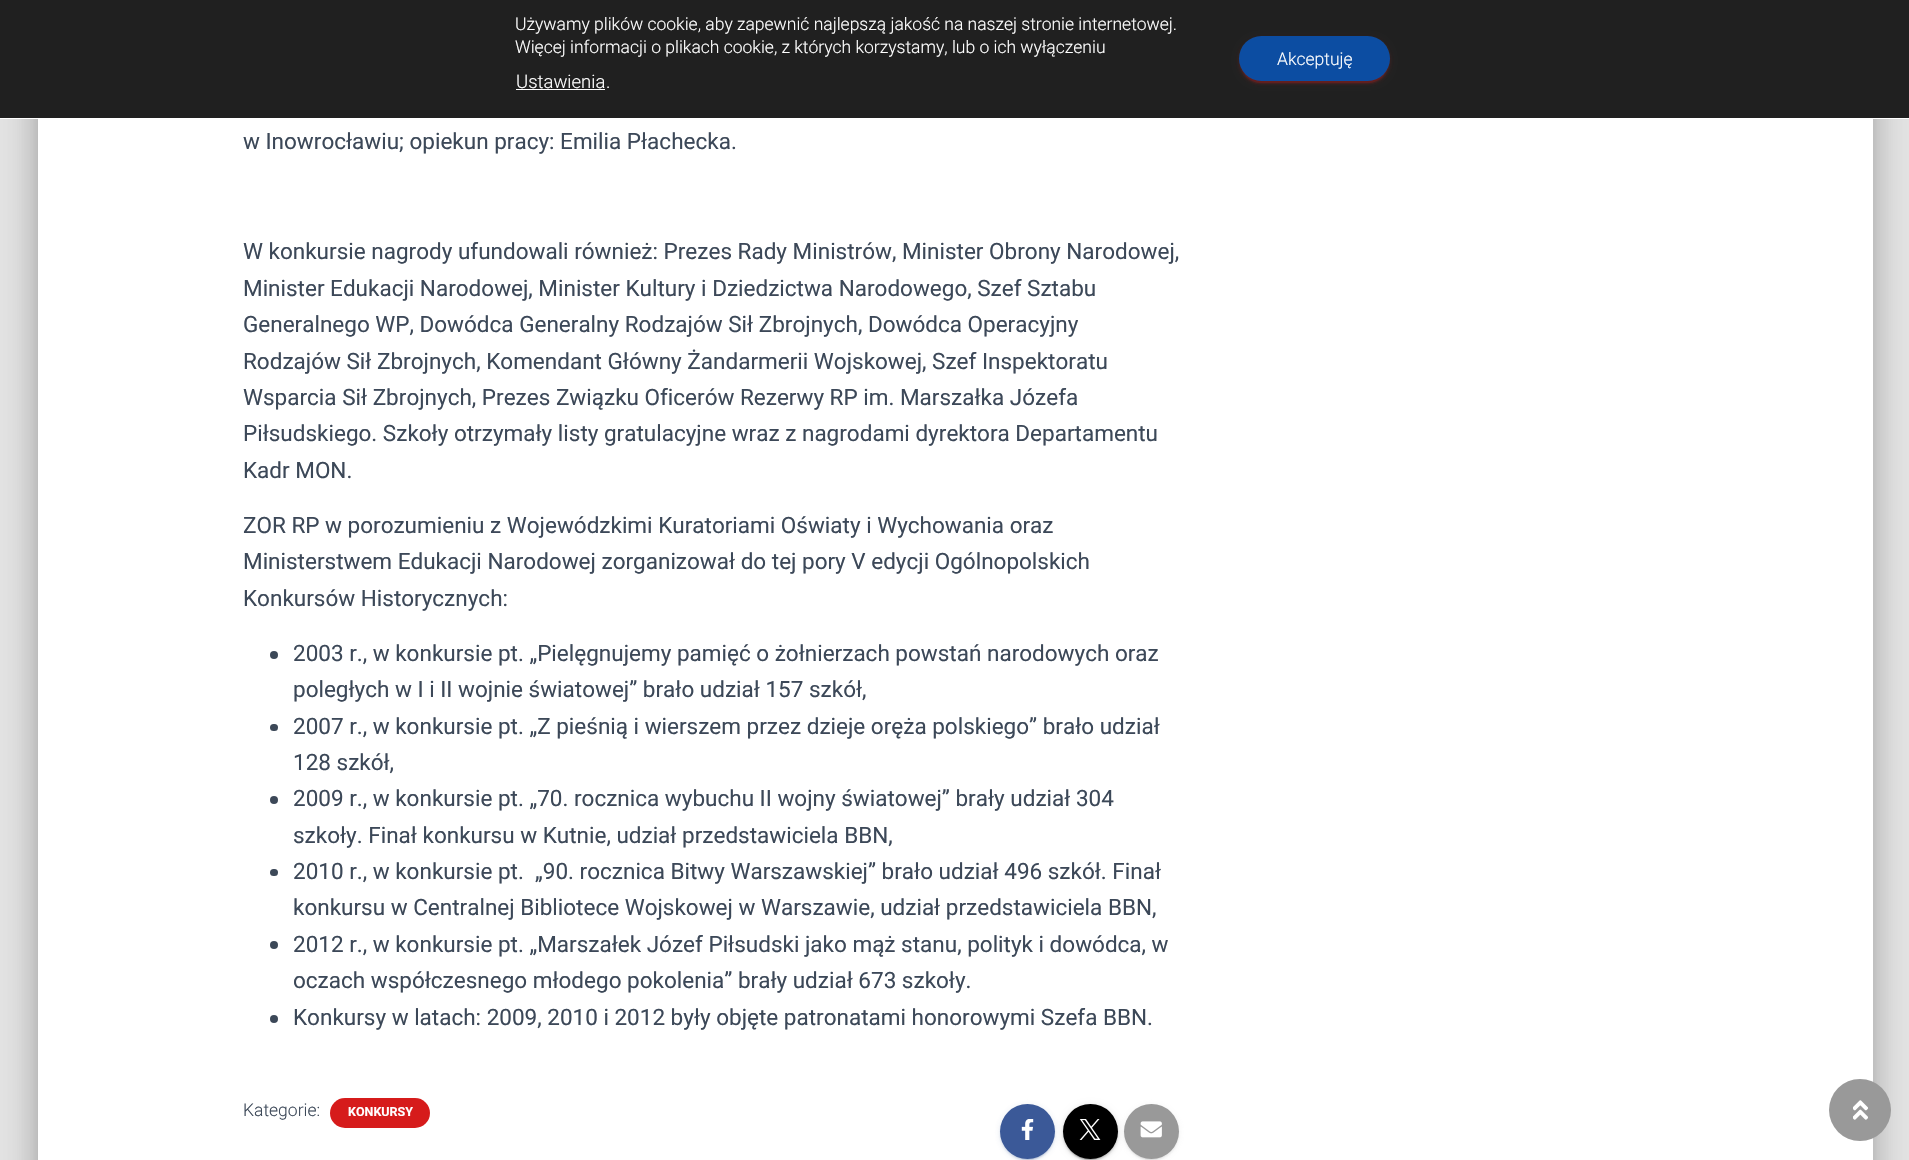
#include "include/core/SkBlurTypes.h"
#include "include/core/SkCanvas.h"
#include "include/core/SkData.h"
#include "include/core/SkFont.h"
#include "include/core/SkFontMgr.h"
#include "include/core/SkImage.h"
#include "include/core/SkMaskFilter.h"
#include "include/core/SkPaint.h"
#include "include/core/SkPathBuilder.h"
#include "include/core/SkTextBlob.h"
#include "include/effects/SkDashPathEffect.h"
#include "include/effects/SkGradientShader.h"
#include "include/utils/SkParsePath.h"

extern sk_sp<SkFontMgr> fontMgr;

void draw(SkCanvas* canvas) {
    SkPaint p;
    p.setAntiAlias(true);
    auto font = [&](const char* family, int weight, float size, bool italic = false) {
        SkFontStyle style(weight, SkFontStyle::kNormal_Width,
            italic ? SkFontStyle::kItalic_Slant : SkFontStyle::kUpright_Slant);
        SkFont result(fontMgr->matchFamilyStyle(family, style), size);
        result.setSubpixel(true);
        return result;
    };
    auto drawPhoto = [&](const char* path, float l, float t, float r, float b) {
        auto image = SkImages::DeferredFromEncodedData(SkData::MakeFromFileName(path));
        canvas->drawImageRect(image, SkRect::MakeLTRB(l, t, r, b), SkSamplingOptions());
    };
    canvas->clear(0xFFE5E5E5);
    p.setColor(0x33000000);
    p.setMaskFilter(SkMaskFilter::MakeBlur(kNormal_SkBlurStyle, 6));
    canvas->drawRoundRect(SkRect::MakeLTRB(44, -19, 1866, 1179), 1, 1, p);
    p.setMaskFilter(nullptr);
    p.setColor(0x1F000000);
    p.setMaskFilter(SkMaskFilter::MakeBlur(kNormal_SkBlurStyle, 19));
    canvas->drawRoundRect(SkRect::MakeLTRB(31, -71, 1879, 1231), 14, 14, p);
    p.setMaskFilter(nullptr);
    p.setColor(0x24000000);
    p.setMaskFilter(SkMaskFilter::MakeBlur(kNormal_SkBlurStyle, 15));
    canvas->drawRoundRect(SkRect::MakeLTRB(35, -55, 1875, 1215), 10, 10, p);
    p.setMaskFilter(nullptr);
    p.setColor(0xFF202020);
    canvas->drawRect(SkRect::MakeLTRB(0, 0, 1909, 118), p);
    p.setColor(0xFFFFFFFF);
    canvas->drawRect(SkRect::MakeLTRB(0, 118, 1909, 119), p);
    auto font1 = font("Roboto", 300, 17.5f);
    canvas->drawString("Używamy plików cookie, aby zapewnić najlepszą jakość na naszej stronie internetowej.", 515, 30, font1, p);
    canvas->drawString("Więcej informacji o plikach cookie, z których korzystamy, lub o ich wyłączeniu", 515, 53, font1, p);
    auto font2 = font("Roboto", 300, 18.5f);
    canvas->drawString("Ustawienia", 516, 88, font2, p);
    canvas->drawRect(SkRect::MakeLTRB(516, 89, 605, 90), p);
    canvas->drawString(".", 606, 88, font2, p);
    p.setColor(0x1FD61B1B);
    p.setMaskFilter(SkMaskFilter::MakeBlur(kNormal_SkBlurStyle, 3));
    canvas->drawRoundRect(SkRect::MakeLTRB(1239, 38, 1390, 83), 22.5f, 22.5f, p);
    p.setMaskFilter(nullptr);
    p.setColor(0x33D61B1B);
    p.setMaskFilter(SkMaskFilter::MakeBlur(kNormal_SkBlurStyle, 0.5f));
    canvas->drawRoundRect(SkRect::MakeLTRB(1241, 43, 1388, 83), 20, 20, p);
    p.setMaskFilter(nullptr);
    p.setColor(0x24D61B1B);
    p.setMaskFilter(SkMaskFilter::MakeBlur(kNormal_SkBlurStyle, 1));
    canvas->drawRoundRect(SkRect::MakeLTRB(1239, 39, 1390, 84), 22.5f, 22.5f, p);
    p.setMaskFilter(nullptr);
    p.setColor(0xFF0C4DA2);
    canvas->drawRoundRect(SkRect::MakeLTRB(1239, 36, 1390, 81), 22.5f, 22.5f, p);
    p.setColor(0xFFFFFFFF);
    canvas->drawString("Akceptuję", 1277, 65, font1, p);
    canvas->drawRect(SkRect::MakeLTRB(38, 119, 1873, 1160), p);
    auto font3 = font("Roboto", 400, 22.5f);
    p.setColor(0xFF3C4858);
    {
        const struct { const char* s; float x, y; } items[] = {
            {"w Inowrocławiu; opiekun pracy: Emilia Płachecka.", 243, 149},
            {"W konkursie nagrody ufundowali również: Prezes Rady Ministrów, Minister Obrony Narodowej,", 243, 259},
            {"Minister Edukacji Narodowej, Minister Kultury i Dziedzictwa Narodowego, Szef Sztabu", 243, 296},
            {"Generalnego WP, Dowódca Generalny Rodzajów Sił Zbrojnych, Dowódca Operacyjny", 243, 332},
            {"Rodzajów Sił Zbrojnych, Komendant Główny Żandarmerii Wojskowej, Szef Inspektoratu", 243, 369},
            {"Wsparcia Sił Zbrojnych, Prezes Związku Oficerów Rezerwy RP im. Marszałka Józefa", 243, 405},
            {"Piłsudskiego. Szkoły otrzymały listy gratulacyjne wraz z nagrodami dyrektora Departamentu", 243, 441},
            {"Kadr MON.", 243, 478},
            {"ZOR RP w porozumieniu z Wojewódzkimi Kuratoriami Oświaty i Wychowania oraz", 243, 533},
            {"Ministerstwem Edukacji Narodowej zorganizował do tej pory V edycji Ogólnopolskich", 243, 569},
            {"Konkursów Historycznych:", 243, 606},
        };
        for (auto [s, x, y] : items) {
            canvas->drawString(s, x, y, font3, p);
        }
    }
    canvas->drawCircle(274, 655, 4, p);
    canvas->drawString("2003 r., w konkursie pt. „Pielęgnujemy pamięć o żołnierzach powstań narodowych oraz", 293, 661, font3, p);
    canvas->drawString("poległych w I i II wojnie światowej” brało udział 157 szkół,", 293, 697, font3, p);
    canvas->drawRoundRect(SkRect::MakeLTRB(270, 724, 278, 731), 3.5f, 3.5f, p);
    canvas->drawString("2007 r., w konkursie pt. „Z pieśnią i wierszem przez dzieje oręża polskiego” brało udział", 293, 734, font3, p);
    canvas->drawString("128 szkół,", 293, 770, font3, p);
    canvas->drawCircle(274, 800, 4, p);
    canvas->drawString("2009 r., w konkursie pt. „70. rocznica wybuchu II wojny światowej” brały udział 304", 293, 806, font3, p);
    canvas->drawString("szkoły. Finał konkursu w Kutnie, udział przedstawiciela BBN,", 293, 843, font3, p);
    canvas->drawRoundRect(SkRect::MakeLTRB(270, 869, 278, 876), 3.5f, 3.5f, p);
    canvas->drawString("2010 r., w konkursie pt.  „90. rocznica Bitwy Warszawskiej” brało udział 496 szkół. Finał", 293, 879, font3, p);
    canvas->drawString("konkursu w Centralnej Bibliotece Wojskowej w Warszawie, udział przedstawiciela BBN,", 293, 915, font3, p);
    canvas->drawCircle(274, 945, 4, p);
    canvas->drawString("2012 r., w konkursie pt. „Marszałek Józef Piłsudski jako mąż stanu, polityk i dowódca, w", 293, 952, font3, p);
    canvas->drawString("oczach współczesnego młodego pokolenia” brały udział 673 szkoły.", 293, 988, font3, p);
    canvas->drawCircle(274, 1019, 4, p);
    canvas->drawString("Konkursy w latach: 2009, 2010 i 2012 były objęte patronatami honorowymi Szefa BBN.", 293, 1025, font3, p);
    canvas->drawString("Kategorie:", 243, 1116, font1, p);
    p.setColor(0xFFD61B1B);
    canvas->drawRoundRect(SkRect::MakeLTRB(330, 1098, 430, 1128), 15, 15, p);
    auto font4 = font("Roboto", 700, 12.5f);
    p.setColor(0xFFFFFFFF);
    canvas->drawString("KONKURSY", 348, 1116, font4, p);
    p.setColor(0x1F3B5998);
    p.setMaskFilter(SkMaskFilter::MakeBlur(kNormal_SkBlurStyle, 3));
    canvas->drawRoundRect(SkRect::MakeLTRB(1000, 1105, 1055, 1160), 27.5f, 27.5f, p);
    p.setMaskFilter(nullptr);
    p.setColor(0x333B5998);
    p.setMaskFilter(SkMaskFilter::MakeBlur(kNormal_SkBlurStyle, 0.5f));
    canvas->drawRoundRect(SkRect::MakeLTRB(1003, 1110, 1053, 1160), 25, 25, p);
    p.setMaskFilter(nullptr);
    p.setColor(0x243B5998);
    p.setMaskFilter(SkMaskFilter::MakeBlur(kNormal_SkBlurStyle, 1));
    canvas->drawRoundRect(SkRect::MakeLTRB(1000, 1106, 1055, 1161), 27.5f, 27.5f, p);
    p.setMaskFilter(nullptr);
    p.setColor(0xFF3B5998);
    canvas->drawCircle(1027.5f, 1131.5f, 27.5f, p);
    drawPhoto("media/1.png", 1021, 1119, 1034, 1140);
    p.setColor(0x1F000000);
    p.setMaskFilter(SkMaskFilter::MakeBlur(kNormal_SkBlurStyle, 3));
    canvas->drawRoundRect(SkRect::MakeLTRB(1063, 1105, 1118, 1160), 27.5f, 27.5f, p);
    p.setMaskFilter(nullptr);
    p.setColor(0x33000000);
    p.setMaskFilter(SkMaskFilter::MakeBlur(kNormal_SkBlurStyle, 0.5f));
    canvas->drawRoundRect(SkRect::MakeLTRB(1065, 1110, 1115, 1160), 25, 25, p);
    p.setMaskFilter(nullptr);
    p.setColor(0x24000000);
    p.setMaskFilter(SkMaskFilter::MakeBlur(kNormal_SkBlurStyle, 1));
    canvas->drawRoundRect(SkRect::MakeLTRB(1063, 1106, 1118, 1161), 27.5f, 27.5f, p);
    p.setMaskFilter(nullptr);
    p.setColor(0xFF000000);
    canvas->drawCircle(1090.5f, 1131.5f, 27.5f, p);
    drawPhoto("media/2.png", 1079, 1119, 1101, 1140);
    p.setColor(0x1F999999);
    p.setMaskFilter(SkMaskFilter::MakeBlur(kNormal_SkBlurStyle, 3));
    canvas->drawRoundRect(SkRect::MakeLTRB(1124, 1105, 1179, 1160), 27.5f, 27.5f, p);
    p.setMaskFilter(nullptr);
    p.setColor(0x33999999);
    p.setMaskFilter(SkMaskFilter::MakeBlur(kNormal_SkBlurStyle, 0.5f));
    canvas->drawRoundRect(SkRect::MakeLTRB(1126, 1110, 1176, 1160), 25, 25, p);
    p.setMaskFilter(nullptr);
    p.setColor(0x24999999);
    p.setMaskFilter(SkMaskFilter::MakeBlur(kNormal_SkBlurStyle, 1));
    canvas->drawRoundRect(SkRect::MakeLTRB(1124, 1106, 1179, 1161), 27.5f, 27.5f, p);
    p.setMaskFilter(nullptr);
    p.setColor(0xFF999999);
    canvas->drawCircle(1151.5f, 1131.5f, 27.5f, p);
    drawPhoto("media/3.png", 1140, 1121, 1162, 1138);
    canvas->drawCircle(1860, 1110, 31, p);
    drawPhoto("media/4.png", 1853, 1100, 1868, 1120);
}
